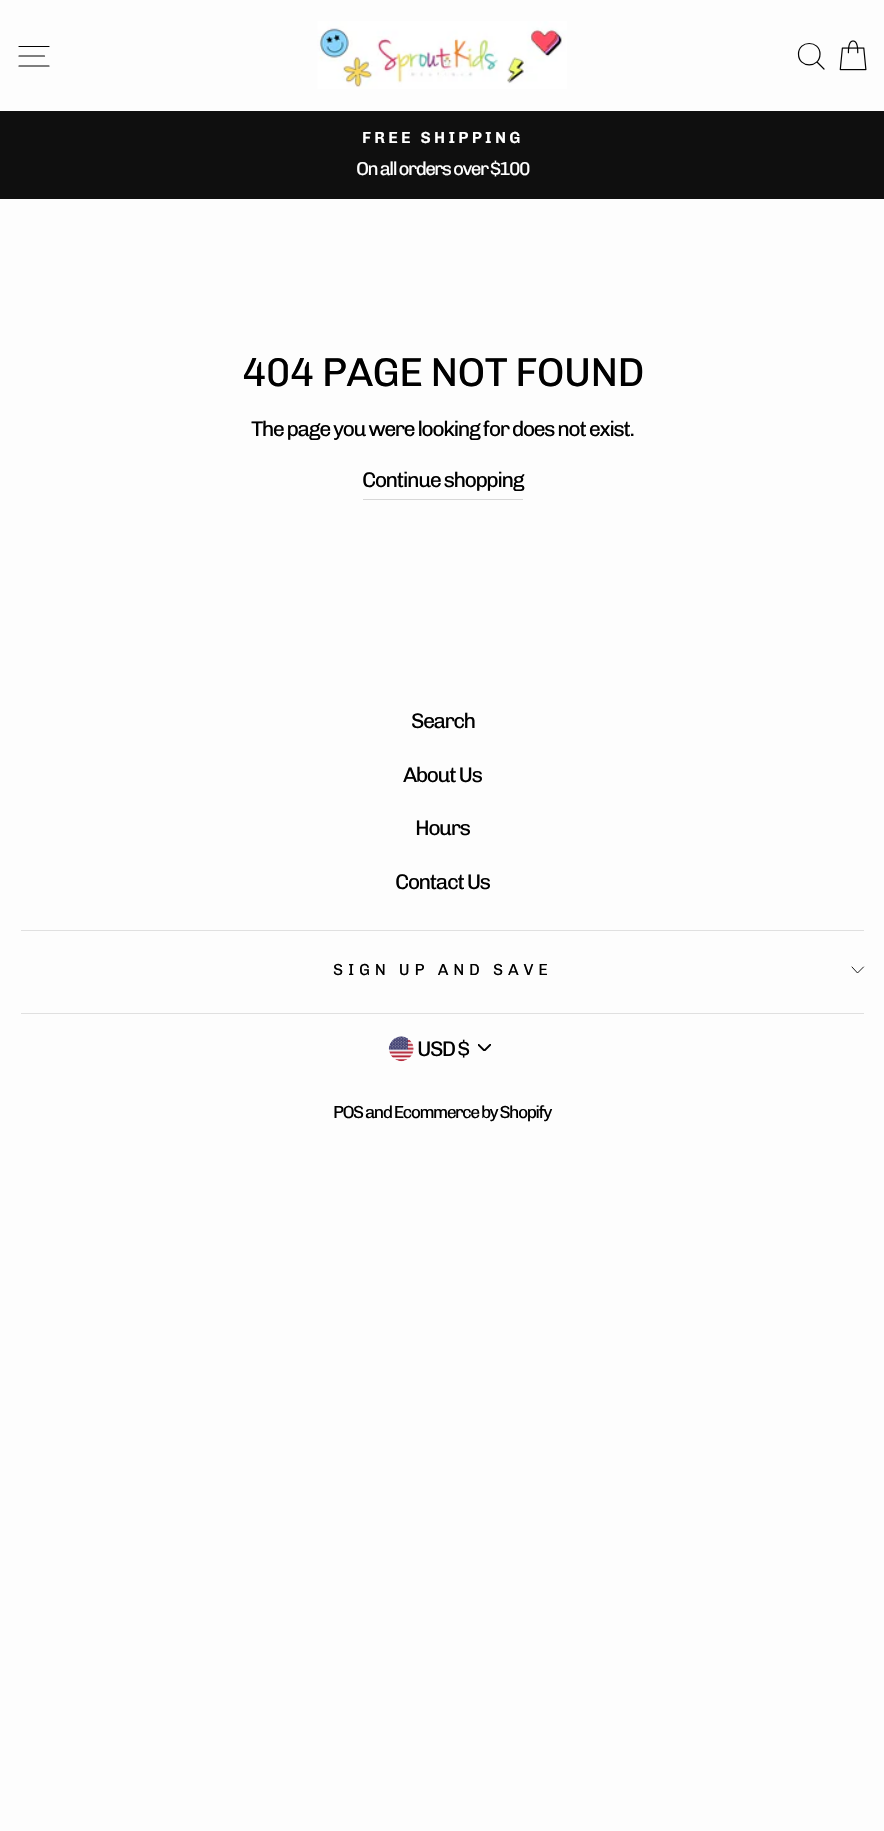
#include "include/core/SkBlurTypes.h"
#include "include/core/SkCanvas.h"
#include "include/core/SkData.h"
#include "include/core/SkFont.h"
#include "include/core/SkFontMgr.h"
#include "include/core/SkImage.h"
#include "include/core/SkMaskFilter.h"
#include "include/core/SkPaint.h"
#include "include/core/SkPathBuilder.h"
#include "include/core/SkTextBlob.h"
#include "include/effects/SkDashPathEffect.h"
#include "include/effects/SkGradientShader.h"
#include "include/utils/SkParsePath.h"

extern sk_sp<SkFontMgr> fontMgr;

void draw(SkCanvas* canvas) {
    SkPaint p;
    p.setAntiAlias(true);
    auto font = [&](const char* family, int weight, float size, bool italic = false) {
        SkFontStyle style(weight, SkFontStyle::kNormal_Width,
            italic ? SkFontStyle::kItalic_Slant : SkFontStyle::kUpright_Slant);
        SkFont result(fontMgr->matchFamilyStyle(family, style), size);
        result.setSubpixel(true);
        return result;
    };
    auto drawTracked = [&](const char* s, float x, float y, const SkFont& font, const SkPaint& ink, float letter, float word) {
        std::vector<SkGlyphID> glyphs(font.countText(s, strlen(s), SkTextEncoding::kUTF8));
        std::vector<float> xs(glyphs.size());
        font.textToGlyphs(s, strlen(s), SkTextEncoding::kUTF8, glyphs);
        font.getXPos(glyphs, xs, x);
        float extra = 0;
        for (size_t i = 0; i < glyphs.size(); i++) {
            xs[i] += extra;
            extra += letter + word * (glyphs[i] == font.unicharToGlyph(' '));
        }
        canvas->drawTextBlob(SkTextBlob::MakeFromPosHGlyphs(glyphs, xs, y, font), 0, 0, ink);
    };
    auto drawPhoto = [&](const char* path, float l, float t, float r, float b) {
        auto image = SkImages::DeferredFromEncodedData(SkData::MakeFromFileName(path));
        canvas->drawImageRect(image, SkRect::MakeLTRB(l, t, r, b), SkSamplingOptions());
    };
    canvas->clear(0xFFFDFDFD);
    p.setStyle(SkPaint::kStroke_Style);
    p.setStrokeWidth(1.2f);
    p.setStrokeCap(SkPaint::kRound_Cap);
    p.setStrokeJoin(SkPaint::kRound_Join);
    p.setColor(0xFF000000);
    canvas->drawPath(SkPathBuilder().moveTo(19, 46.5f).lineTo(49, 46.5f).moveTo(19, 56).lineTo(44.5f, 56).moveTo(19, 66).lineTo(49, 66).detach(), p);
    drawPhoto("media/1.png", 317, 21, 567, 89);
    canvas->drawPath(SkPathBuilder().moveTo(820, 54).cubicTo(820, 68.5f, 798.5f, 68.5f, 798.5f, 54).cubicTo(798.5f, 40, 820, 40, 820, 54).close().moveTo(824, 69).lineTo(817, 62).detach(), p);
    drawPhoto("media/2.png", 839, 40, 867, 71);
    p.setStyle(SkPaint::kFill_Style);
    p.setColor(0xFF0F0F0F);
    canvas->drawRect(SkRect::MakeLTRB(0, 111, 884, 199), p);
    auto font1 = font("Chivo", 600, 16);
    p.setColor(0xFFFFFFFF);
    drawTracked("FREE SHIPPING", 362, 143, font1, p, 3.25f, 0);
    auto font2 = font("Chivo", 400, 18.75f);
    drawTracked("On all orders over $100", 356, 175, font2, p, -1.6f, 0);
    auto font3 = font("Chivo", 400, 40.4f);
    p.setColor(0xFF000000);
    drawTracked("404 PAGE NOT FOUND", 242, 386, font3, p, -1, 0);
    auto font4 = font("Chivo", 400, 21.25f);
    drawTracked("The page you were looking for does not exist.", 251, 436, font4, p, -1.6f, 0);
    p.setColor(0xFFD7D7D7);
    canvas->drawRect(SkRect::MakeLTRB(363, 499, 523, 500), p);
    p.setColor(0xFF000000);
    {
        const struct { const char* s; float x, y; } items[] = {
            {"Continue shopping", 362, 487},
            {"Search", 411, 728},
            {"About Us", 403, 782},
            {"Hours", 415, 835},
            {"Contact Us", 395, 889},
        };
        for (auto [s, x, y] : items) {
            drawTracked(s, x, y, font4, p, -1.6f, 0);
        }
    }
    p.setColor(0xFFE0E0E0);
    canvas->drawRect(SkRect::MakeLTRB(21, 930, 864, 931), p);
    auto font5 = font("Chivo", 400, 16);
    p.setColor(0xFF000000);
    drawTracked("SIGN UP AND SAVE", 333, 975, font5, p, 4.75f, 0);
    p.setStyle(SkPaint::kStroke_Style);
    p.setStrokeWidth(0.9f);
    canvas->drawPath(SkPathBuilder().moveTo(852, 967).lineTo(857.5f, 973).lineTo(863.5f, 967).detach(), p);
    p.setStyle(SkPaint::kFill_Style);
    p.setColor(0xFFE0E0E0);
    canvas->drawRect(SkRect::MakeLTRB(21, 1013, 864, 1014), p);
    drawPhoto("media/3.png", 478, 1044, 491, 1051);
    drawPhoto("media/4.png", 388, 1036, 414, 1062);
    p.setColor(0xFF000000);
    drawTracked("USD $", 417, 1056, font4, p, -1.6f, 0);
    auto font6 = font("Chivo", 400, 17.5f);
    drawTracked("POS and Ecommerce by Shopify", 333, 1118, font6, p, -1.6f, 0);
}
